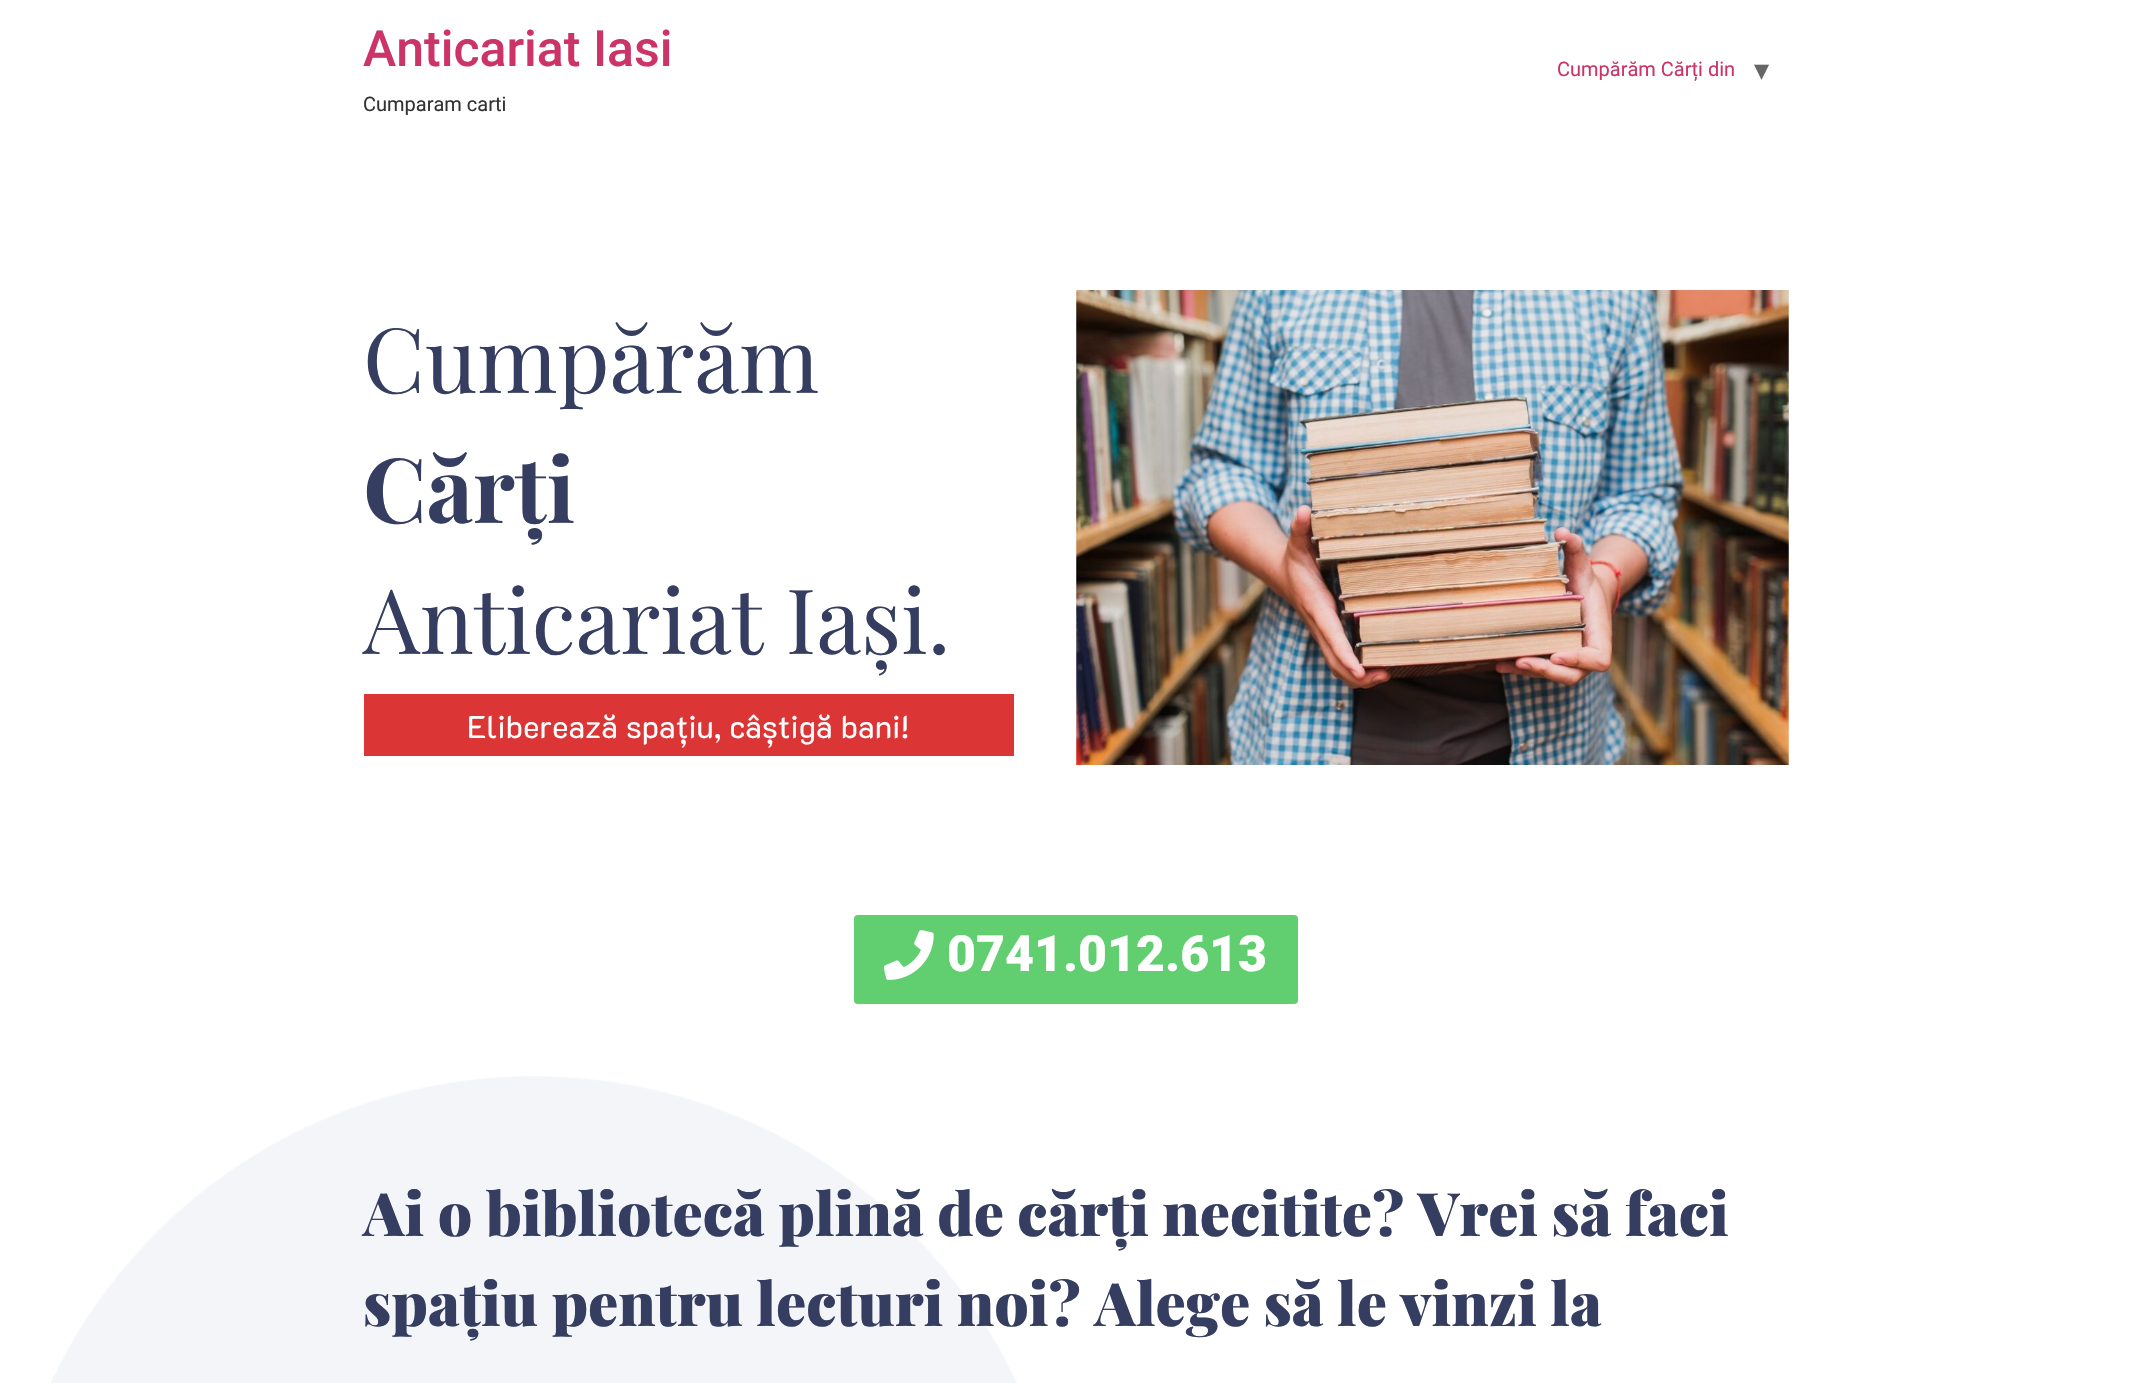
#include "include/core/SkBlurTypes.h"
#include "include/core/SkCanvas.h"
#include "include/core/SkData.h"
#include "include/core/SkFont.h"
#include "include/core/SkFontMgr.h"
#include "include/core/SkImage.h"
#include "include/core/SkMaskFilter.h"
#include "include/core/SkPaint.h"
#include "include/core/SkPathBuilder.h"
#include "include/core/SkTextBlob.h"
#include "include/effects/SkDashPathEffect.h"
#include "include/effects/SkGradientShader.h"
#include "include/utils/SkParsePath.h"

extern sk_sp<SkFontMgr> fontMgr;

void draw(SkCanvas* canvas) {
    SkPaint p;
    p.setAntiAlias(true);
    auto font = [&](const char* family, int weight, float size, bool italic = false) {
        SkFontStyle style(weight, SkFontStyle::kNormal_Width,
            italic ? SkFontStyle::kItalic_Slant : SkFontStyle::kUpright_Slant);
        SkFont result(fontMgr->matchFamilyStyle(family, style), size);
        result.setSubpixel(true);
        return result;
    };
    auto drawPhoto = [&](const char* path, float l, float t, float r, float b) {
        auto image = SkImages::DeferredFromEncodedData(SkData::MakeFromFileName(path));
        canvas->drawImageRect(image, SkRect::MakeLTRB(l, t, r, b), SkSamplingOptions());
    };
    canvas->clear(0xFFFFFFFF);
    auto font1 = font("Roboto", 500, 50);
    p.setColor(0xFFCC3366);
    canvas->drawString("Anticariat Iasi", 363, 66, font1, p);
    auto font2 = font("Roboto", 400, 20);
    p.setColor(0xFF333333);
    canvas->drawString("Cumparam carti", 363, 111, font2, p);
    p.setColor(0xFFCC3366);
    canvas->drawString("Cumpărăm Cărți din", 1557, 76, font2, p);
    auto font3 = font("DejaVu Sans", 400, 30);
    p.setColor(0xFF666666);
    canvas->drawString("▾", 1754, 80, font3, p);
    auto font4 = font("Playfair Display", 400, 90);
    p.setColor(0xFF353E60);
    canvas->drawString("Cumpărăm", 363, 393, font4, p);
    auto font5 = font("Playfair Display", 700, 90);
    canvas->drawString("Cărți", 363, 523, font5, p);
    canvas->drawString("Anticariat Iași.", 363, 654, font4, p);
    p.setColor(0xFFDB3535);
    canvas->drawRect(SkRect::MakeLTRB(364, 694, 1014, 756), p);
    auto font6 = font("K2D", 400, 31.25f);
    p.setColor(0xFFFFFFFF);
    canvas->drawString("Eliberează spațiu, câștigă bani!", 467, 738, font6, p);
    drawPhoto("media/1.png", 1076, 290, 1789, 765);
    p.setColor(0xFF61CE70);
    canvas->drawRoundRect(SkRect::MakeLTRB(854, 915, 1298, 1004), 4, 4, p);
    drawPhoto("media/2.png", 884, 930, 934, 980);
    auto font7 = font("Roboto", 900, 50);
    p.setColor(0xFFFFFFFF);
    canvas->drawString("0741.012.613", 947, 971, font7, p);
    drawPhoto("media/3.png", 51, 1076, 1017, 1383);
    auto font8 = font("Playfair Display", 900, 60);
    p.setColor(0xFF353E60);
    canvas->drawString("Ai o bibliotecă plină de cărți necitite? Vrei să faci", 363, 1236, font8, p);
    canvas->drawString("spațiu pentru lecturi noi? Alege să le vinzi la", 363, 1326, font8, p);
}
